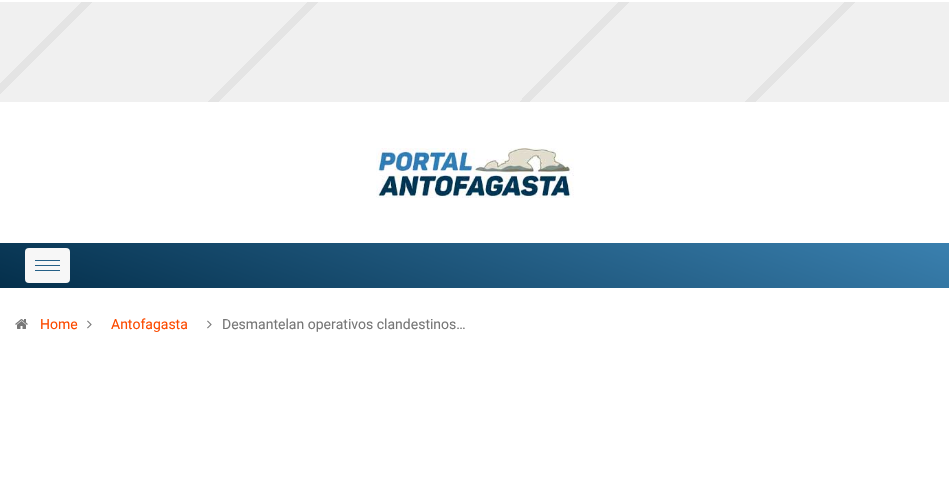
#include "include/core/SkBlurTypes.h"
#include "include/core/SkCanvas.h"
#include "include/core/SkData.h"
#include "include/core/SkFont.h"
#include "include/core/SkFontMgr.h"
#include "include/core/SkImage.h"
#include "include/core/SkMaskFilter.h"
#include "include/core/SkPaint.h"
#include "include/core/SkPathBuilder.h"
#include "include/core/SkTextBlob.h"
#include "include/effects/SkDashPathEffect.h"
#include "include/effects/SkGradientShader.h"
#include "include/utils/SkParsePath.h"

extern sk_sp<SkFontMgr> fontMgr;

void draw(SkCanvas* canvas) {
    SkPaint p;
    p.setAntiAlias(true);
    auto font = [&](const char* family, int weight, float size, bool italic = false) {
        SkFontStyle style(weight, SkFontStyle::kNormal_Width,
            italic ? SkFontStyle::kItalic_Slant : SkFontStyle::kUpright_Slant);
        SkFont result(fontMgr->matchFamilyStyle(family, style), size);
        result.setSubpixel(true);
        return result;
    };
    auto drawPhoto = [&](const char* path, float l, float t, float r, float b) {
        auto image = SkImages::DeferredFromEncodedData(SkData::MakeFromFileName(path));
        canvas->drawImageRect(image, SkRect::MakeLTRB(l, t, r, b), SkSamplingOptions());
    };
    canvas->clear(0xFFFFFFFF);
    {
        const SkColor colors[] = {0xFFE4E4E4, 0xFFE4E4E4, 0xFFF0F0F0, 0xFFF0F0F0, 0xFFE4E4E4, 0xFFE4E4E4, 0xFFF0F0F0, 0xFFF0F0F0, 0xFFE4E4E4, 0xFFE4E4E4, 0xFFF0F0F0, 0xFFF0F0F0, 0xFFE4E4E4, 0xFFE4E4E4, 0xFFF0F0F0, 0xFFF0F0F0, 0xFFE4E4E4, 0xFFE4E4E4, 0xFFF0F0F0, 0xFFF0F0F0, 0xFFE4E4E4, 0xFFE4E4E4, 0xFFF0F0F0, 0xFFF0F0F0, 0xFFE4E4E4, 0xFFE4E4E4, 0xFFF0F0F0, 0xFFF0F0F0, 0xFFE4E4E4, 0xFFE4E4E4, 0xFFF0F0F0, 0xFFF0F0F0, 0xFFE4E4E4, 0xFFE4E4E4, 0xFFF0F0F0, 0xFFF0F0F0, 0xFFE4E4E4, 0xFFE4E4E4, 0xFFF0F0F0, 0xFFF0F0F0, 0xFFE4E4E4, 0xFFE4E4E4, 0xFFF0F0F0, 0xFFF0F0F0, 0xFFE4E4E4, 0xFFE4E4E4, 0xFFF0F0F0, 0xFFF0F0F0, 0xFFE4E4E4, 0xFFE4E4E4, 0xFFF0F0F0, 0xFFF0F0F0, 0xFFE4E4E4, 0xFFE4E4E4, 0xFFF0F0F0, 0xFFF0F0F0, 0xFFE4E4E4, 0xFFE4E4E4, 0xFFF0F0F0, 0xFFF0F0F0, 0xFFE4E4E4, 0xFFE4E4E4, 0xFFF0F0F0, 0xFFF0F0F0, 0xFFE4E4E4, 0xFFE4E4E4, 0xFFF0F0F0, 0xFFF0F0F0, 0xFFE4E4E4, 0xFFE4E4E4, 0xFFF0F0F0, 0xFFF0F0F0, 0xFFE4E4E4, 0xFFE4E4E4, 0xFFF0F0F0, 0xFFF0F0F0, 0xFFE4E4E4, 0xFFE4E4E4, 0xFFF0F0F0, 0xFFF0F0F0, 0xFFE4E4E4, 0xFFE4E4E4, 0xFFF0F0F0, 0xFFF0F0F0, 0xFFE4E4E4, 0xFFE4E4E4, 0xFFF0F0F0, 0xFFF0F0F0, 0xFFE4E4E4, 0xFFE4E4E4, 0xFFF0F0F0, 0xFFF0F0F0, 0xFFE4E4E4, 0xFFE4E4E4, 0xFFF0F0F0, 0xFFF0F0F0, 0xFFE4E4E4, 0xFFE4E4E4, 0xFFF0F0F0, 0xFFF0F0F0, 0xFFE4E4E4, 0xFFE4E4E4, 0xFFF0F0F0, 0xFFF0F0F0, 0xFFE4E4E4, 0xFFE4E4E4, 0xFFF0F0F0, 0xFFF0F0F0, 0xFFE4E4E4, 0xFFE4E4E4, 0xFFF0F0F0, 0xFFF0F0F0, 0xFFE4E4E4, 0xFFE4E4E4, 0xFFF0F0F0, 0xFFF0F0F0, 0xFFE4E4E4, 0xFFE4E4E4, 0xFFF0F0F0, 0xFFF0F0F0, 0xFFE4E4E4, 0xFFE4E4E4, 0xFFF0F0F0, 0xFFF0F0F0, 0xFFE4E4E4, 0xFFE4E4E4, 0xFFF0F0F0, 0xFFF0F0F0, 0xFFE4E4E4, 0xFFE4E4E4, 0xFFF0F0F0, 0xFFF0F0F0, 0xFFE4E4E4, 0xFFE4E4E4, 0xFFF0F0F0, 0xFFF0F0F0, 0xFFE4E4E4, 0xFFE4E4E4, 0xFFF0F0F0, 0xFFF0F0F0, 0xFFE4E4E4, 0xFFE4E4E4, 0xFFF0F0F0, 0xFFF0F0F0, 0xFFE4E4E4, 0xFFE4E4E4, 0xFFF0F0F0, 0xFFF0F0F0, 0xFFE4E4E4, 0xFFE4E4E4, 0xFFF0F0F0, 0xFFF0F0F0};
        const float stops[] = {0, 0, 0, 0.03f, 0.03f, 0.03f, 0.03f, 0.05f, 0.05f, 0.05f, 0.05f, 0.08f, 0.08f, 0.08f, 0.08f, 0.11f, 0.11f, 0.11f, 0.11f, 0.13f, 0.13f, 0.13f, 0.13f, 0.16f, 0.16f, 0.16f, 0.16f, 0.18f, 0.18f, 0.19f, 0.19f, 0.21f, 0.21f, 0.21f, 0.21f, 0.24f, 0.24f, 0.24f, 0.24f, 0.26f, 0.26f, 0.26f, 0.26f, 0.29f, 0.29f, 0.29f, 0.29f, 0.32f, 0.32f, 0.32f, 0.32f, 0.34f, 0.34f, 0.34f, 0.34f, 0.37f, 0.37f, 0.37f, 0.37f, 0.39f, 0.39f, 0.4f, 0.4f, 0.42f, 0.42f, 0.42f, 0.42f, 0.45f, 0.45f, 0.45f, 0.45f, 0.47f, 0.47f, 0.47f, 0.47f, 0.5f, 0.5f, 0.5f, 0.5f, 0.53f, 0.53f, 0.53f, 0.53f, 0.55f, 0.55f, 0.55f, 0.55f, 0.58f, 0.58f, 0.58f, 0.58f, 0.61f, 0.61f, 0.61f, 0.61f, 0.63f, 0.63f, 0.63f, 0.63f, 0.66f, 0.66f, 0.66f, 0.66f, 0.68f, 0.68f, 0.69f, 0.69f, 0.71f, 0.71f, 0.71f, 0.71f, 0.74f, 0.74f, 0.74f, 0.74f, 0.76f, 0.76f, 0.76f, 0.76f, 0.79f, 0.79f, 0.79f, 0.79f, 0.82f, 0.82f, 0.82f, 0.82f, 0.84f, 0.84f, 0.84f, 0.84f, 0.87f, 0.87f, 0.87f, 0.87f, 0.89f, 0.89f, 0.9f, 0.9f, 0.92f, 0.92f, 0.92f, 0.92f, 0.95f, 0.95f, 0.95f, 0.95f, 0.97f, 0.97f, 0.97f, 0.97f, 1};
        const SkPoint ends[] = {{737, 314}, {199, -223}};
        p.setShader(SkGradientShader::MakeLinear(ends, colors, stops, 152, SkTileMode::kClamp));
        p.setAlpha(255);
    }
    canvas->drawRect(SkRect::MakeLTRB(0, 2, 949, 102), p);
    drawPhoto("media/1.png", 376, 148, 574, 198);
    {
        const SkColor colors[] = {0xFF042F4B, 0xFF3A80AF};
        const float stops[] = {0, 1};
        const SkPoint ends[] = {{412, 438}, {537, 93}};
        p.setShader(SkGradientShader::MakeLinear(ends, colors, stops, 2, SkTileMode::kClamp));
        p.setAlpha(255);
    }
    canvas->drawRect(SkRect::MakeLTRB(0, 243, 949, 288), p);
    p.setShader(nullptr);
    p.setColor(0xFFF7F7F7);
    canvas->drawRoundRect(SkRect::MakeLTRB(25, 248, 70, 283), 4, 4, p);
    {
        const struct { float l, t, r, b; SkColor color; } items[] = {
            {35, 260, 60, 261, 0xFF256087},
            {35, 265, 60, 266, 0xFF256087},
            {35, 270, 60, 271, 0xFF256087},
        };
        for (auto [l, t, r, b, color] : items) {
            p.setColor(color);
            canvas->drawRect(SkRect::MakeLTRB(l, t, r, b), p);
        }
    }
    drawPhoto("media/2.png", 15, 319, 28, 329);
    auto font1 = font("Roboto", 400, 14);
    p.setColor(0xFFFC4A00);
    canvas->drawString("Home", 40, 329, font1, p);
    drawPhoto("media/3.png", 87, 320, 92, 329);
    canvas->drawString("Antofagasta", 111, 329, font1, p);
    drawPhoto("media/3.png", 207, 320, 212, 329);
    p.setColor(0xFF777777);
    canvas->drawString("Desmantelan operativos clandestinos…", 222, 329, font1, p);
}
